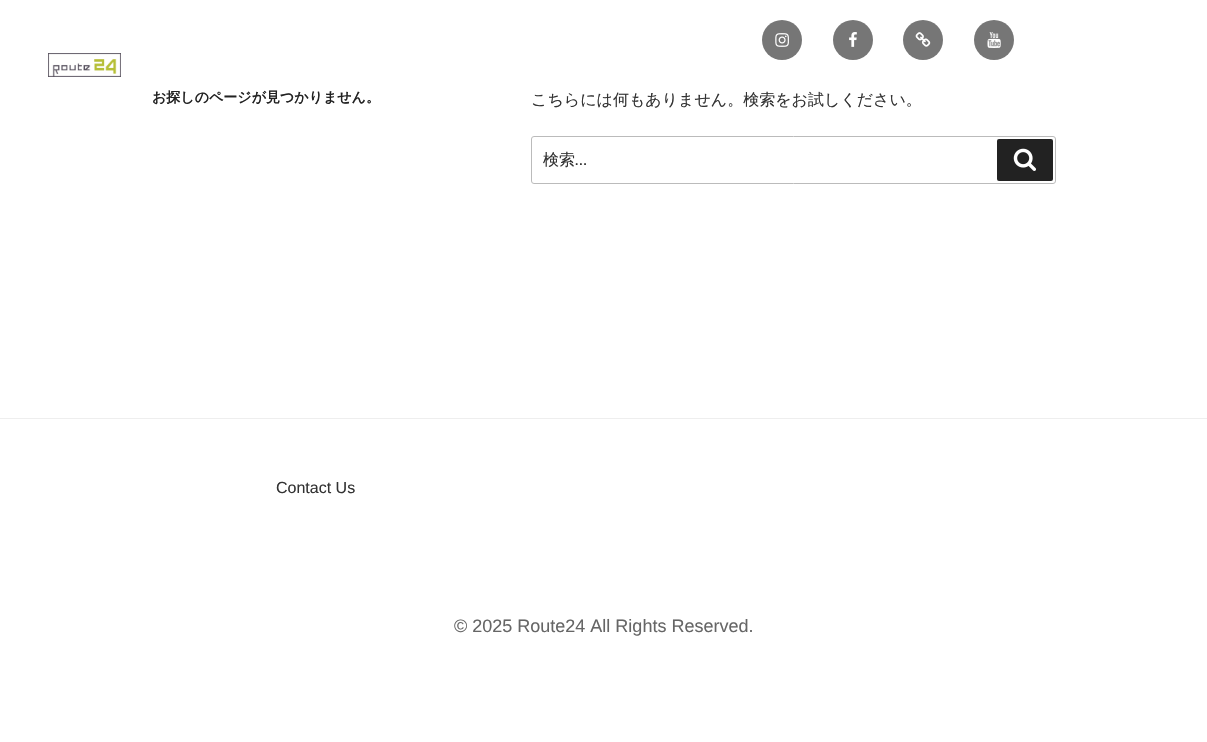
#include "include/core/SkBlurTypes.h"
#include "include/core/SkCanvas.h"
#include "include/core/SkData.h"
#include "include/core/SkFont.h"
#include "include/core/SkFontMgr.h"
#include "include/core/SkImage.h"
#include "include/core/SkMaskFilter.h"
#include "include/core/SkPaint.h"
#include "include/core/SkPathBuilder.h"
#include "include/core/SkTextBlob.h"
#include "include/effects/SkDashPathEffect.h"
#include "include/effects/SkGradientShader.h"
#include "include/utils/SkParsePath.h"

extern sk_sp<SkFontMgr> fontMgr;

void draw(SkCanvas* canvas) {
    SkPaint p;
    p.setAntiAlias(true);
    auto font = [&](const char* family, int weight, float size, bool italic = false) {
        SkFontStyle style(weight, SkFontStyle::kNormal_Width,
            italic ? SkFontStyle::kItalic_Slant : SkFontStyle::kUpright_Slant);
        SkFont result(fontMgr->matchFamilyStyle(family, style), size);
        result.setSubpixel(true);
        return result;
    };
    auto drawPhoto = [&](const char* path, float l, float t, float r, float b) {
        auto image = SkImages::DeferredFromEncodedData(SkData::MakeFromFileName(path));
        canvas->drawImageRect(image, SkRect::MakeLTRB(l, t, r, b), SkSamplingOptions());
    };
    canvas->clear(0xFFFFFFFF);
    drawPhoto("media/1.png", 48, 53, 121, 77);
    auto font1 = font("WenQuanYi Zen Hei", 700, 14);
    p.setColor(0xFF222222);
    canvas->drawString("お探しのページが見つかりません。", 152, 102, font1, p);
    auto font2 = font("WenQuanYi Zen Hei", 500, 16);
    p.setColor(0xFF333333);
    canvas->drawString("こちらには何もありません。検索をお試しください。", 531, 105, font2, p);
    p.setStyle(SkPaint::kStroke_Style);
    p.setStrokeWidth(1);
    p.setColor(0xFFBBBBBB);
    canvas->drawRoundRect(SkRect::MakeLTRB(531.5f, 136.5f, 1055.5f, 183.5f), 2.5f, 2.5f, p);
    p.setStyle(SkPaint::kFill_Style);
    p.setColor(0xFF333333);
    canvas->drawString("検索", 543, 165, font2, p);
    auto font3 = font("Libre Franklin", 400, 16);
    canvas->drawString("…", 575, 165, font3, p);
    p.setColor(0xFF222222);
    canvas->drawRoundRect(SkRect::MakeLTRB(997, 139, 1053, 181), 2, 2, p);
    drawPhoto("media/2.png", 1013, 148, 1036, 171);
    p.setColor(0xFFEEEEEE);
    canvas->drawRect(SkRect::MakeLTRB(0, 418, 1207, 419), p);
    p.setColor(0xFF767676);
    canvas->drawCircle(782, 40, 20, p);
    drawPhoto("media/3.png", 775, 33, 789, 47);
    canvas->drawCircle(853, 40, 20, p);
    drawPhoto("media/4.png", 849, 32, 857, 47);
    canvas->drawCircle(923, 40, 20, p);
    drawPhoto("media/5.png", 915, 32, 931, 47);
    canvas->drawCircle(994, 40, 20, p);
    drawPhoto("media/6.png", 987, 32, 1001, 48);
    auto font4 = font("Liberation Sans", 400, 16);
    p.setColor(0xFF333333);
    canvas->drawString("Contact Us", 276, 493, font4, p);
    auto font5 = font("Liberation Sans", 400, 18);
    p.setColor(0xFF666666);
    canvas->drawString("© 2025 Route24 All Rights Reserved.", 454, 632, font5, p);
}
